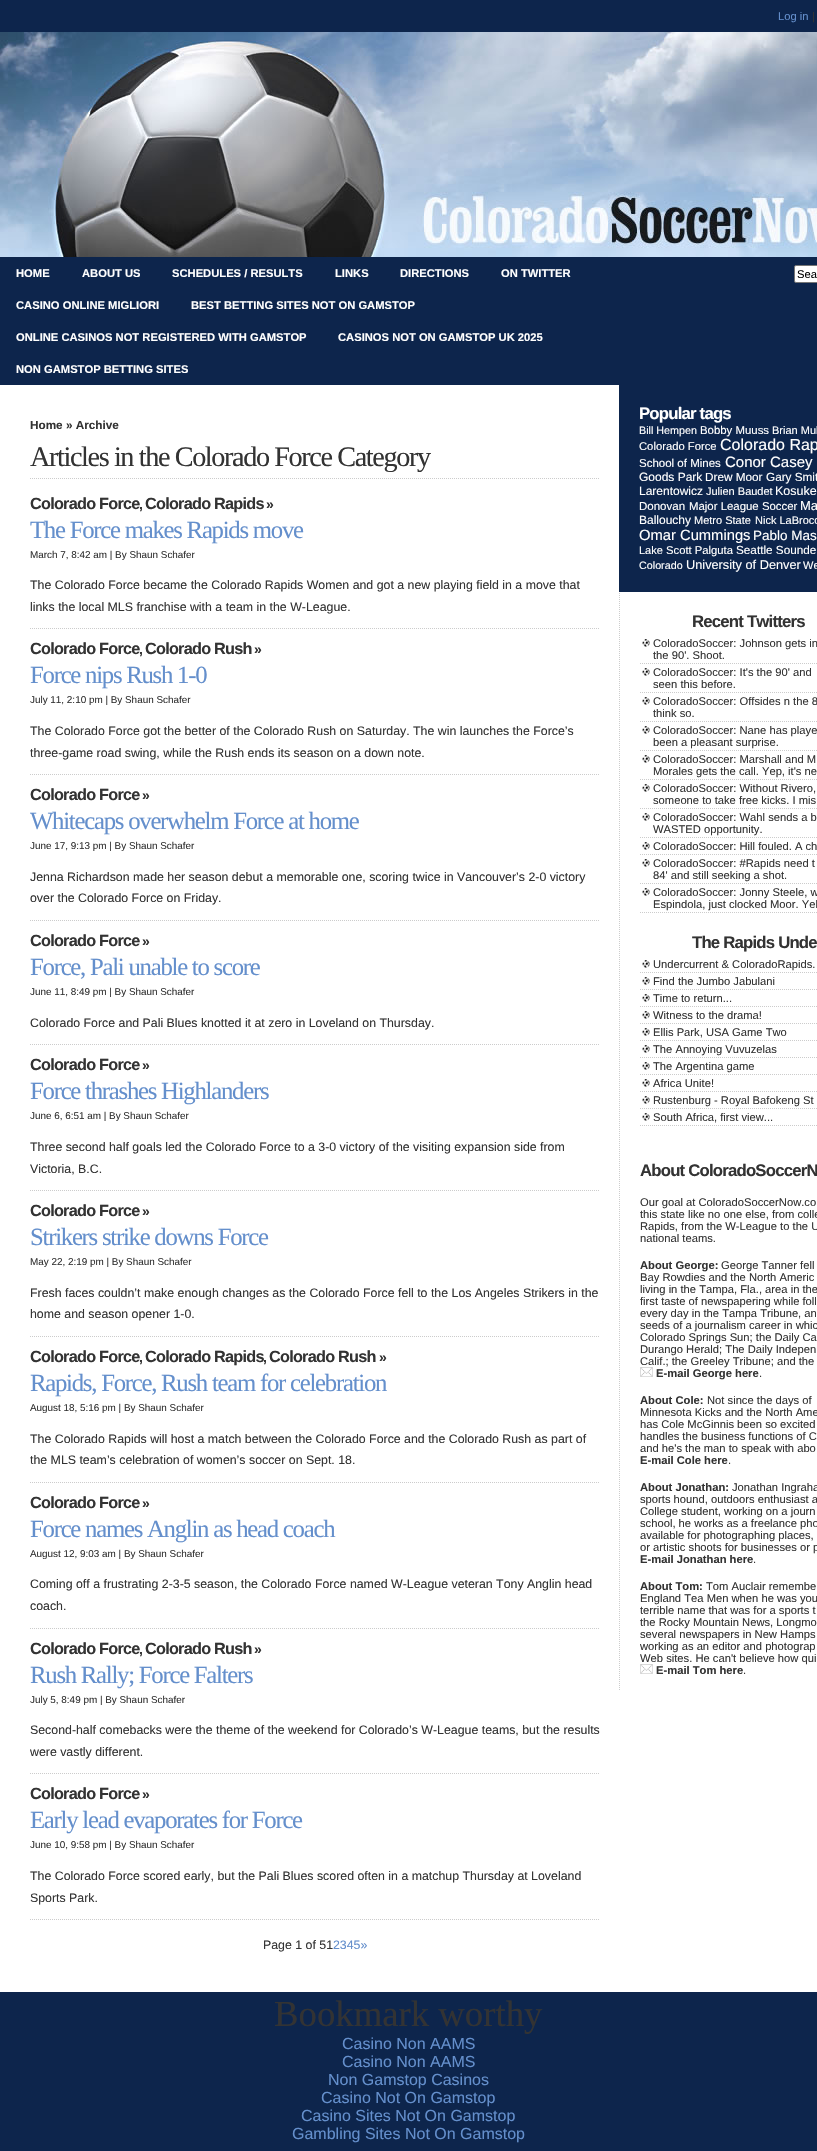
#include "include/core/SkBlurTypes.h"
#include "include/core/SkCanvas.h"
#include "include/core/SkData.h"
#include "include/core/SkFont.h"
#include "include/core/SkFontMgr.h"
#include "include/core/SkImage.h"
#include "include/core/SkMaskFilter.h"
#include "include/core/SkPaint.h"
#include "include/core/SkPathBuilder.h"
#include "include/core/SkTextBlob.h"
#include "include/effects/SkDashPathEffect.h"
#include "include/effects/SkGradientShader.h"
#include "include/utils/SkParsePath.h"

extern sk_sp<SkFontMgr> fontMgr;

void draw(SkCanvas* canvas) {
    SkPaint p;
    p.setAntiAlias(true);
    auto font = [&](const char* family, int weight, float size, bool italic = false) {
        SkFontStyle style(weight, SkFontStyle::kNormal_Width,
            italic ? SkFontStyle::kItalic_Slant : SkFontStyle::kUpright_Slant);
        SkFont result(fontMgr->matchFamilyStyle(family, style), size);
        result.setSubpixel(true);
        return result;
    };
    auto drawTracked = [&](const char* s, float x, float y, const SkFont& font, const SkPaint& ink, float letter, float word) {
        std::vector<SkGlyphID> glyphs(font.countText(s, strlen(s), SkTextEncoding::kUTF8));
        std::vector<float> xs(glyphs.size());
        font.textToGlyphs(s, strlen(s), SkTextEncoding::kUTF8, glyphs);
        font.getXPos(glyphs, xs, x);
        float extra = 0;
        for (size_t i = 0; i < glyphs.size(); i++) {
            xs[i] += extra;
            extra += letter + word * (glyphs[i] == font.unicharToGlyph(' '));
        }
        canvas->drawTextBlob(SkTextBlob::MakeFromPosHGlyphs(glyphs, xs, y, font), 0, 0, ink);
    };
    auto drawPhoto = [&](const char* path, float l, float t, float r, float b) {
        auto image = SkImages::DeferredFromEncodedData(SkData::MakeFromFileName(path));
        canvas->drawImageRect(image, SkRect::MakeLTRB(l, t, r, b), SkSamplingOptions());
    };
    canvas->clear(0xFF0D254C);
    auto font1 = font("Liberation Sans", 400, 11.2f);
    p.setColor(0xFF648FCC);
    canvas->drawString("Log in", 778, 20, font1, p);
    p.setColor(0xFF333333);
    canvas->drawString("|", 812, 20, font1, p);
    drawPhoto("media/1.png", 0, 32, 817, 257);
    auto font2 = font("Liberation Sans", 700, 11.2f);
    p.setColor(0xFFFFFFFF);
    {
        const struct { const char* s; float x, y; } items[] = {
            {"HOME", 16, 277},
            {"ABOUT US", 82, 277},
            {"SCHEDULES / RESULTS", 172, 277},
            {"LINKS", 335, 277},
            {"DIRECTIONS", 400, 277},
            {"ON TWITTER", 501, 277},
            {"CASINO ONLINE MIGLIORI", 16, 309},
            {"BEST BETTING SITES NOT ON GAMSTOP", 191, 309},
            {"ONLINE CASINOS NOT REGISTERED WITH GAMSTOP", 16, 341},
            {"CASINOS NOT ON GAMSTOP UK 2025", 338, 341},
            {"NON GAMSTOP BETTING SITES", 16, 373},
        };
        for (auto [s, x, y] : items) {
            canvas->drawString(s, x, y, font2, p);
        }
    }
    canvas->drawRoundRect(SkRect::MakeLTRB(794.5f, 265.5f, 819.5f, 282.5f), 1.5f, 1.5f, p);
    p.setStyle(SkPaint::kStroke_Style);
    p.setStrokeWidth(1);
    p.setColor(0xFF767676);
    canvas->drawRoundRect(SkRect::MakeLTRB(794.5f, 265.5f, 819.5f, 282.5f), 1.5f, 1.5f, p);
    p.setStyle(SkPaint::kFill_Style);
    p.setColor(0xFF000000);
    canvas->drawString("Sea", 797, 278, font1, p);
    p.setColor(0xFFFFFFFF);
    canvas->drawRect(SkRect::MakeLTRB(0, 385, 817, 1992), p);
    auto font3 = font("Liberation Sans", 700, 11.75f);
    p.setColor(0xFF333333);
    canvas->drawString("Home » Archive", 30, 429, font3, p);
    p.setStyle(SkPaint::kStroke_Style);
    p.setColor(0xFFCCCCCC);
    p.setPathEffect(SkDashPathEffect::Make({{1, 1}}, 0));
    canvas->drawPath(SkPathBuilder().moveTo(30, 478.5f).lineTo(600, 478.5f).detach(), p);
    p.setPathEffect(nullptr);
    auto font4 = font("Liberation Serif", 400, 28.25f);
    p.setStyle(SkPaint::kFill_Style);
    p.setColor(0xFF333333);
    drawTracked("Articles in the Colorado Force Category", 30, 466, font4, p, -1.4f, 0);
    p.setStyle(SkPaint::kStroke_Style);
    p.setColor(0xFFCCCCCC);
    p.setPathEffect(SkDashPathEffect::Make({{1, 1}}, 0));
    canvas->drawPath(SkPathBuilder().moveTo(30, 628.5f).lineTo(600, 628.5f).detach(), p);
    p.setPathEffect(nullptr);
    auto font5 = font("Liberation Sans", 700, 16.25f);
    p.setStyle(SkPaint::kFill_Style);
    p.setColor(0xFF333333);
    drawTracked("Colorado Force", 30, 509, font5, p, -0.75f, 0);
    drawTracked("Colorado Rapids", 145, 509, font5, p, -0.75f, 0);
    auto font6 = font("Liberation Sans", 700, 14);
    drawTracked("»", 266, 509, font6, p, -1, 0);
    drawTracked(",", 139, 509, font6, p, -1, 0);
    auto font7 = font("Liberation Serif", 400, 24.75f);
    p.setColor(0xFF648FCC);
    drawTracked("The Force makes Rapids move", 30, 538, font7, p, -1.25f, 0);
    auto font8 = font("Liberation Sans", 400, 9.9f);
    p.setColor(0xFF333333);
    canvas->drawString("March 7, 8:42 am | By Shaun Schafer", 30, 558, font8, p);
    auto font9 = font("Liberation Sans", 400, 12.35f);
    canvas->drawString("The Colorado Force became the Colorado Rapids Women and got a new playing field in a move that", 30, 589, font9, p);
    canvas->drawString("links the local MLS franchise with a team in the W-League.", 30, 611, font9, p);
    p.setStyle(SkPaint::kStroke_Style);
    p.setColor(0xFFCCCCCC);
    p.setPathEffect(SkDashPathEffect::Make({{1, 1}}, 0));
    canvas->drawPath(SkPathBuilder().moveTo(30, 774.5f).lineTo(600, 774.5f).detach(), p);
    p.setPathEffect(nullptr);
    p.setStyle(SkPaint::kFill_Style);
    p.setColor(0xFF333333);
    drawTracked("Colorado Force", 30, 654, font5, p, -0.75f, 0);
    drawTracked("Colorado Rush", 145, 654, font5, p, -0.75f, 0);
    drawTracked("»", 254, 654, font6, p, -1, 0);
    drawTracked(",", 139, 654, font6, p, -1, 0);
    p.setColor(0xFF648FCC);
    drawTracked("Force nips Rush 1-0", 30, 683, font7, p, -1.25f, 0);
    p.setColor(0xFF333333);
    canvas->drawString("July 11, 2:10 pm | By Shaun Schafer", 30, 703, font8, p);
    canvas->drawString("The Colorado Force got the better of the Colorado Rush on Saturday. The win launches the Force’s", 30, 735, font9, p);
    canvas->drawString("three-game road swing, while the Rush ends its season on a down note.", 30, 757, font9, p);
    p.setStyle(SkPaint::kStroke_Style);
    p.setColor(0xFFCCCCCC);
    p.setPathEffect(SkDashPathEffect::Make({{1, 1}}, 0));
    canvas->drawPath(SkPathBuilder().moveTo(30, 920.5f).lineTo(600, 920.5f).detach(), p);
    p.setPathEffect(nullptr);
    p.setStyle(SkPaint::kFill_Style);
    p.setColor(0xFF333333);
    drawTracked("Colorado Force", 30, 800, font5, p, -0.75f, 0);
    drawTracked("»", 142, 800, font6, p, -1, 0);
    p.setColor(0xFF648FCC);
    drawTracked("Whitecaps overwhelm Force at home", 30, 829, font7, p, -1.25f, 0);
    p.setColor(0xFF333333);
    canvas->drawString("June 17, 9:13 pm | By Shaun Schafer", 30, 849, font8, p);
    canvas->drawString("Jenna Richardson made her season debut a memorable one, scoring twice in Vancouver’s 2-0 victory", 30, 881, font9, p);
    canvas->drawString("over the Colorado Force on Friday.", 30, 902, font9, p);
    p.setStyle(SkPaint::kStroke_Style);
    p.setColor(0xFFCCCCCC);
    p.setPathEffect(SkDashPathEffect::Make({{1, 1}}, 0));
    canvas->drawPath(SkPathBuilder().moveTo(30, 1044.5f).lineTo(600, 1044.5f).detach(), p);
    p.setPathEffect(nullptr);
    p.setStyle(SkPaint::kFill_Style);
    p.setColor(0xFF333333);
    drawTracked("Colorado Force", 30, 946, font5, p, -0.75f, 0);
    drawTracked("»", 142, 946, font6, p, -1, 0);
    p.setColor(0xFF648FCC);
    drawTracked("Force, Pali unable to score", 30, 975, font7, p, -1.25f, 0);
    p.setColor(0xFF333333);
    canvas->drawString("June 11, 8:49 pm | By Shaun Schafer", 30, 995, font8, p);
    canvas->drawString("Colorado Force and Pali Blues knotted it at zero in Loveland on Thursday.", 30, 1027, font9, p);
    p.setStyle(SkPaint::kStroke_Style);
    p.setColor(0xFFCCCCCC);
    p.setPathEffect(SkDashPathEffect::Make({{1, 1}}, 0));
    canvas->drawPath(SkPathBuilder().moveTo(30, 1190.5f).lineTo(600, 1190.5f).detach(), p);
    p.setPathEffect(nullptr);
    p.setStyle(SkPaint::kFill_Style);
    p.setColor(0xFF333333);
    drawTracked("Colorado Force", 30, 1070, font5, p, -0.75f, 0);
    drawTracked("»", 142, 1070, font6, p, -1, 0);
    p.setColor(0xFF648FCC);
    drawTracked("Force thrashes Highlanders", 30, 1099, font7, p, -1.25f, 0);
    p.setColor(0xFF333333);
    canvas->drawString("June 6, 6:51 am | By Shaun Schafer", 30, 1119, font8, p);
    canvas->drawString("Three second half goals led the Colorado Force to a 3-0 victory of the visiting expansion side from", 30, 1151, font9, p);
    canvas->drawString("Victoria, B.C.", 30, 1173, font9, p);
    p.setStyle(SkPaint::kStroke_Style);
    p.setColor(0xFFCCCCCC);
    p.setPathEffect(SkDashPathEffect::Make({{1, 1}}, 0));
    canvas->drawPath(SkPathBuilder().moveTo(30, 1336.5f).lineTo(600, 1336.5f).detach(), p);
    p.setPathEffect(nullptr);
    p.setStyle(SkPaint::kFill_Style);
    p.setColor(0xFF333333);
    drawTracked("Colorado Force", 30, 1216, font5, p, -0.75f, 0);
    drawTracked("»", 142, 1216, font6, p, -1, 0);
    p.setColor(0xFF648FCC);
    drawTracked("Strikers strike downs Force", 30, 1245, font7, p, -1.25f, 0);
    p.setColor(0xFF333333);
    canvas->drawString("May 22, 2:19 pm | By Shaun Schafer", 30, 1265, font8, p);
    canvas->drawString("Fresh faces couldn’t make enough changes as the Colorado Force fell to the Los Angeles Strikers in the", 30, 1297, font9, p);
    canvas->drawString("home and season opener 1-0.", 30, 1318, font9, p);
    p.setStyle(SkPaint::kStroke_Style);
    p.setColor(0xFFCCCCCC);
    p.setPathEffect(SkDashPathEffect::Make({{1, 1}}, 0));
    canvas->drawPath(SkPathBuilder().moveTo(30, 1482.5f).lineTo(600, 1482.5f).detach(), p);
    p.setPathEffect(nullptr);
    p.setStyle(SkPaint::kFill_Style);
    p.setColor(0xFF333333);
    {
        const struct { const char* s; float x, y; } items[] = {
            {"Colorado Force", 30, 1362},
            {"Colorado Rapids", 145, 1362},
            {"Colorado Rush", 269, 1362},
        };
        for (auto [s, x, y] : items) {
            drawTracked(s, x, y, font5, p, -0.75f, 0);
        }
    }
    {
        const struct { const char* s; float x, y; } items[] = {
            {"»", 379, 1362},
            {",", 139, 1362},
            {",", 263, 1362},
        };
        for (auto [s, x, y] : items) {
            drawTracked(s, x, y, font6, p, -1, 0);
        }
    }
    p.setColor(0xFF648FCC);
    drawTracked("Rapids, Force, Rush team for celebration", 30, 1391, font7, p, -1.25f, 0);
    p.setColor(0xFF333333);
    canvas->drawString("August 18, 5:16 pm | By Shaun Schafer", 30, 1411, font8, p);
    canvas->drawString("The Colorado Rapids will host a match between the Colorado Force and the Colorado Rush as part of", 30, 1443, font9, p);
    canvas->drawString("the MLS team’s celebration of women’s soccer on Sept. 18.", 30, 1464, font9, p);
    p.setStyle(SkPaint::kStroke_Style);
    p.setColor(0xFFCCCCCC);
    p.setPathEffect(SkDashPathEffect::Make({{1, 1}}, 0));
    canvas->drawPath(SkPathBuilder().moveTo(30, 1628.5f).lineTo(600, 1628.5f).detach(), p);
    p.setPathEffect(nullptr);
    p.setStyle(SkPaint::kFill_Style);
    p.setColor(0xFF333333);
    drawTracked("Colorado Force", 30, 1508, font5, p, -0.75f, 0);
    drawTracked("»", 142, 1508, font6, p, -1, 0);
    p.setColor(0xFF648FCC);
    drawTracked("Force names Anglin as head coach", 30, 1537, font7, p, -1.25f, 0);
    p.setColor(0xFF333333);
    canvas->drawString("August 12, 9:03 am | By Shaun Schafer", 30, 1557, font8, p);
    canvas->drawString("Coming off a frustrating 2-3-5 season, the Colorado Force named W-League veteran Tony Anglin head", 30, 1588, font9, p);
    canvas->drawString("coach.", 30, 1610, font9, p);
    p.setStyle(SkPaint::kStroke_Style);
    p.setColor(0xFFCCCCCC);
    p.setPathEffect(SkDashPathEffect::Make({{1, 1}}, 0));
    canvas->drawPath(SkPathBuilder().moveTo(30, 1773.5f).lineTo(600, 1773.5f).detach(), p);
    p.setPathEffect(nullptr);
    p.setStyle(SkPaint::kFill_Style);
    p.setColor(0xFF333333);
    drawTracked("Colorado Force", 30, 1654, font5, p, -0.75f, 0);
    drawTracked("Colorado Rush", 145, 1654, font5, p, -0.75f, 0);
    drawTracked("»", 254, 1654, font6, p, -1, 0);
    drawTracked(",", 139, 1654, font6, p, -1, 0);
    p.setColor(0xFF648FCC);
    drawTracked("Rush Rally; Force Falters", 30, 1683, font7, p, -1.25f, 0);
    p.setColor(0xFF333333);
    canvas->drawString("July 5, 8:49 pm | By Shaun Schafer", 30, 1703, font8, p);
    canvas->drawString("Second-half comebacks were the theme of the weekend for Colorado’s W-League teams, but the results", 30, 1734, font9, p);
    canvas->drawString("were vastly different.", 30, 1756, font9, p);
    p.setStyle(SkPaint::kStroke_Style);
    p.setColor(0xFFCCCCCC);
    p.setPathEffect(SkDashPathEffect::Make({{1, 1}}, 0));
    canvas->drawPath(SkPathBuilder().moveTo(30, 1919.5f).lineTo(600, 1919.5f).detach(), p);
    p.setPathEffect(nullptr);
    p.setStyle(SkPaint::kFill_Style);
    p.setColor(0xFF333333);
    drawTracked("Colorado Force", 30, 1799, font5, p, -0.75f, 0);
    drawTracked("»", 142, 1799, font6, p, -1, 0);
    p.setColor(0xFF648FCC);
    drawTracked("Early lead evaporates for Force", 30, 1828, font7, p, -1.25f, 0);
    p.setColor(0xFF333333);
    canvas->drawString("June 10, 9:58 pm | By Shaun Schafer", 30, 1848, font8, p);
    {
        const struct { const char* s; float x, y; } items[] = {
            {"The Colorado Force scored early, but the Pali Blues scored often in a matchup Thursday at Loveland", 30, 1880},
            {"Sports Park.", 30, 1902},
            {"Page 1 of 51", 263, 1949},
        };
        for (auto [s, x, y] : items) {
            canvas->drawString(s, x, y, font9, p);
        }
    }
    p.setColor(0xFF648FCC);
    canvas->drawString("2345»", 333, 1949, font9, p);
    p.setStyle(SkPaint::kStroke_Style);
    p.setColor(0xFFCCCCCC);
    p.setPathEffect(SkDashPathEffect::Make({{1, 1}}, 0));
    canvas->drawPath(SkPathBuilder().moveTo(619.5f, 405).lineTo(619.5f, 1691).detach(), p);
    p.setPathEffect(nullptr);
    p.setStyle(SkPaint::kFill_Style);
    p.setColor(0xFF0D254C);
    canvas->drawRect(SkRect::MakeLTRB(619, 385, 817, 592), p);
    auto font10 = font("Liberation Sans", 700, 16.75f);
    p.setColor(0xFFFFFFFF);
    drawTracked("Popular tags", 639, 419, font10, p, -0.8f, 0);
    auto font11 = font("Liberation Sans", 400, 10.75f);
    canvas->drawString("Bill Hempen", 639, 434, font11, p);
    auto font12 = font("Liberation Sans", 400, 11.4f);
    canvas->drawString("Bobby Muuss", 700, 434, font12, p);
    auto font13 = font("Liberation Sans", 400, 11);
    canvas->drawString("Brian Mul", 772, 434, font13, p);
    auto font14 = font("Liberation Sans", 400, 11.25f);
    canvas->drawString("Colorado Force", 639, 450, font14, p);
    auto font15 = font("Liberation Sans", 400, 16);
    canvas->drawString("Colorado Rap", 720, 450, font15, p);
    auto font16 = font("Liberation Sans", 400, 11.5f);
    canvas->drawString("School of Mines", 639, 467, font16, p);
    auto font17 = font("Liberation Sans", 400, 15);
    canvas->drawString("Conor Casey", 725, 467, font17, p);
    auto font18 = font("Liberation Sans", 400, 12);
    canvas->drawString("Goods Park", 639, 481, font18, p);
    auto font19 = font("Liberation Sans", 400, 11.75f);
    canvas->drawString("Drew Moor", 705, 481, font19, p);
    canvas->drawString("Gary Smit", 766, 481, font19, p);
    canvas->drawString("Larentowicz", 639, 495, font18, p);
    canvas->drawString("Julien Baudet", 706, 495, font13, p);
    auto font20 = font("Liberation Sans", 400, 12.5f);
    canvas->drawString("Kosuke", 775, 495, font20, p);
    canvas->drawString("Donovan", 639, 510, font16, p);
    canvas->drawString("Major League Soccer", 689, 510, font12, p);
    auto font21 = font("Liberation Sans", 400, 13);
    canvas->drawString("Ma", 800, 510, font21, p);
    canvas->drawString("Ballouchy", 639, 524, font18, p);
    canvas->drawString("Metro State", 694, 524, font13, p);
    canvas->drawString("Nick LaBrocc", 755, 524, font13, p);
    auto font22 = font("Liberation Sans", 400, 14.75f);
    canvas->drawString("Omar Cummings", 639, 540, font22, p);
    auto font23 = font("Liberation Sans", 400, 13.5f);
    canvas->drawString("Pablo Mas", 753, 540, font23, p);
    canvas->drawString("Lake", 639, 554, font13, p);
    canvas->drawString("Scott Palguta", 666, 554, font14, p);
    canvas->drawString("Seattle Sounde", 736, 554, font19, p);
    canvas->drawString("Colorado", 639, 569, font11, p);
    auto font24 = font("Liberation Sans", 400, 12.75f);
    canvas->drawString("University of Denver", 686, 569, font24, p);
    canvas->drawString("We", 803, 569, font13, p);
    p.setColor(0xFF333333);
    drawTracked("Recent Twitters", 692, 627, font10, p, -0.8f, 0);
    drawPhoto("media/2.png", 642, 639, 650, 647);
    p.setStyle(SkPaint::kStroke_Style);
    p.setColor(0xFFCCCCCC);
    p.setPathEffect(SkDashPathEffect::Make({{1, 1}}, 0));
    canvas->drawPath(SkPathBuilder().moveTo(640, 663.5f).lineTo(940, 663.5f).detach(), p);
    p.setPathEffect(nullptr);
    p.setStyle(SkPaint::kFill_Style);
    p.setColor(0xFF333333);
    canvas->drawString("ColoradoSoccer: Johnson gets in", 653, 647, font1, p);
    canvas->drawString("the 90'. Shoot.", 653, 659, font1, p);
    drawPhoto("media/2.png", 642, 668, 650, 676);
    p.setStyle(SkPaint::kStroke_Style);
    p.setColor(0xFFCCCCCC);
    p.setPathEffect(SkDashPathEffect::Make({{1, 1}}, 0));
    canvas->drawPath(SkPathBuilder().moveTo(640, 692.5f).lineTo(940, 692.5f).detach(), p);
    p.setPathEffect(nullptr);
    p.setStyle(SkPaint::kFill_Style);
    p.setColor(0xFF333333);
    canvas->drawString("ColoradoSoccer: It's the 90' and", 653, 676, font1, p);
    canvas->drawString("seen this before.", 653, 688, font1, p);
    drawPhoto("media/2.png", 642, 697, 650, 705);
    p.setStyle(SkPaint::kStroke_Style);
    p.setColor(0xFFCCCCCC);
    p.setPathEffect(SkDashPathEffect::Make({{1, 1}}, 0));
    canvas->drawPath(SkPathBuilder().moveTo(640, 721.5f).lineTo(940, 721.5f).detach(), p);
    p.setPathEffect(nullptr);
    p.setStyle(SkPaint::kFill_Style);
    p.setColor(0xFF333333);
    canvas->drawString("ColoradoSoccer: Offsides n the 8", 653, 705, font1, p);
    canvas->drawString("think so.", 653, 717, font1, p);
    drawPhoto("media/2.png", 642, 726, 650, 734);
    p.setStyle(SkPaint::kStroke_Style);
    p.setColor(0xFFCCCCCC);
    p.setPathEffect(SkDashPathEffect::Make({{1, 1}}, 0));
    canvas->drawPath(SkPathBuilder().moveTo(640, 750.5f).lineTo(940, 750.5f).detach(), p);
    p.setPathEffect(nullptr);
    p.setStyle(SkPaint::kFill_Style);
    p.setColor(0xFF333333);
    canvas->drawString("ColoradoSoccer: Nane has playe", 653, 734, font1, p);
    canvas->drawString("been a pleasant surprise.", 653, 746, font1, p);
    drawPhoto("media/2.png", 642, 755, 650, 763);
    p.setStyle(SkPaint::kStroke_Style);
    p.setColor(0xFFCCCCCC);
    p.setPathEffect(SkDashPathEffect::Make({{1, 1}}, 0));
    canvas->drawPath(SkPathBuilder().moveTo(640, 779.5f).lineTo(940, 779.5f).detach(), p);
    p.setPathEffect(nullptr);
    p.setStyle(SkPaint::kFill_Style);
    p.setColor(0xFF333333);
    canvas->drawString("ColoradoSoccer: Marshall and M", 653, 763, font1, p);
    canvas->drawString("Morales gets the call. Yep, it's ne", 653, 775, font1, p);
    drawPhoto("media/2.png", 642, 784, 650, 792);
    p.setStyle(SkPaint::kStroke_Style);
    p.setColor(0xFFCCCCCC);
    p.setPathEffect(SkDashPathEffect::Make({{1, 1}}, 0));
    canvas->drawPath(SkPathBuilder().moveTo(640, 808.5f).lineTo(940, 808.5f).detach(), p);
    p.setPathEffect(nullptr);
    p.setStyle(SkPaint::kFill_Style);
    p.setColor(0xFF333333);
    canvas->drawString("ColoradoSoccer: Without Rivero,", 653, 792, font1, p);
    canvas->drawString("someone to take free kicks. I mis", 653, 804, font1, p);
    drawPhoto("media/2.png", 642, 813, 650, 821);
    p.setStyle(SkPaint::kStroke_Style);
    p.setColor(0xFFCCCCCC);
    p.setPathEffect(SkDashPathEffect::Make({{1, 1}}, 0));
    canvas->drawPath(SkPathBuilder().moveTo(640, 837.5f).lineTo(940, 837.5f).detach(), p);
    p.setPathEffect(nullptr);
    p.setStyle(SkPaint::kFill_Style);
    p.setColor(0xFF333333);
    canvas->drawString("ColoradoSoccer: Wahl sends a b", 653, 821, font1, p);
    canvas->drawString("WASTED opportunity.", 653, 833, font1, p);
    drawPhoto("media/2.png", 642, 842, 650, 850);
    p.setStyle(SkPaint::kStroke_Style);
    p.setColor(0xFFCCCCCC);
    p.setPathEffect(SkDashPathEffect::Make({{1, 1}}, 0));
    canvas->drawPath(SkPathBuilder().moveTo(640, 854.5f).lineTo(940, 854.5f).detach(), p);
    p.setPathEffect(nullptr);
    p.setStyle(SkPaint::kFill_Style);
    p.setColor(0xFF333333);
    canvas->drawString("ColoradoSoccer: Hill fouled. A ch", 653, 850, font1, p);
    drawPhoto("media/2.png", 642, 859, 650, 867);
    p.setStyle(SkPaint::kStroke_Style);
    p.setColor(0xFFCCCCCC);
    p.setPathEffect(SkDashPathEffect::Make({{1, 1}}, 0));
    canvas->drawPath(SkPathBuilder().moveTo(640, 883.5f).lineTo(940, 883.5f).detach(), p);
    p.setPathEffect(nullptr);
    p.setStyle(SkPaint::kFill_Style);
    p.setColor(0xFF333333);
    canvas->drawString("ColoradoSoccer: #Rapids need t", 653, 867, font1, p);
    canvas->drawString("84' and still seeking a shot.", 653, 879, font1, p);
    drawPhoto("media/2.png", 642, 888, 650, 896);
    p.setStyle(SkPaint::kStroke_Style);
    p.setColor(0xFFCCCCCC);
    p.setPathEffect(SkDashPathEffect::Make({{1, 1}}, 0));
    canvas->drawPath(SkPathBuilder().moveTo(640, 912.5f).lineTo(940, 912.5f).detach(), p);
    p.setPathEffect(nullptr);
    p.setStyle(SkPaint::kFill_Style);
    p.setColor(0xFF333333);
    canvas->drawString("ColoradoSoccer: Jonny Steele, w", 653, 896, font1, p);
    canvas->drawString("Espindola, just clocked Moor. Yel", 653, 908, font1, p);
    drawTracked("The Rapids Unde", 692, 948, font10, p, -0.8f, 0);
    drawPhoto("media/2.png", 642, 960, 650, 968);
    p.setStyle(SkPaint::kStroke_Style);
    p.setColor(0xFFCCCCCC);
    p.setPathEffect(SkDashPathEffect::Make({{1, 1}}, 0));
    canvas->drawPath(SkPathBuilder().moveTo(640, 972.5f).lineTo(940, 972.5f).detach(), p);
    p.setPathEffect(nullptr);
    p.setStyle(SkPaint::kFill_Style);
    p.setColor(0xFF333333);
    canvas->drawString("Undercurrent & ColoradoRapids.", 653, 968, font1, p);
    drawPhoto("media/2.png", 642, 977, 650, 985);
    p.setStyle(SkPaint::kStroke_Style);
    p.setColor(0xFFCCCCCC);
    p.setPathEffect(SkDashPathEffect::Make({{1, 1}}, 0));
    canvas->drawPath(SkPathBuilder().moveTo(640, 989.5f).lineTo(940, 989.5f).detach(), p);
    p.setPathEffect(nullptr);
    p.setStyle(SkPaint::kFill_Style);
    p.setColor(0xFF333333);
    canvas->drawString("Find the Jumbo Jabulani", 653, 985, font1, p);
    drawPhoto("media/2.png", 642, 994, 650, 1002);
    p.setStyle(SkPaint::kStroke_Style);
    p.setColor(0xFFCCCCCC);
    p.setPathEffect(SkDashPathEffect::Make({{1, 1}}, 0));
    canvas->drawPath(SkPathBuilder().moveTo(640, 1006.5f).lineTo(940, 1006.5f).detach(), p);
    p.setPathEffect(nullptr);
    p.setStyle(SkPaint::kFill_Style);
    p.setColor(0xFF333333);
    canvas->drawString("Time to return...", 653, 1002, font1, p);
    drawPhoto("media/2.png", 642, 1011, 650, 1019);
    p.setStyle(SkPaint::kStroke_Style);
    p.setColor(0xFFCCCCCC);
    p.setPathEffect(SkDashPathEffect::Make({{1, 1}}, 0));
    canvas->drawPath(SkPathBuilder().moveTo(640, 1023.5f).lineTo(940, 1023.5f).detach(), p);
    p.setPathEffect(nullptr);
    p.setStyle(SkPaint::kFill_Style);
    p.setColor(0xFF333333);
    canvas->drawString("Witness to the drama!", 653, 1019, font1, p);
    drawPhoto("media/2.png", 642, 1028, 650, 1036);
    p.setStyle(SkPaint::kStroke_Style);
    p.setColor(0xFFCCCCCC);
    p.setPathEffect(SkDashPathEffect::Make({{1, 1}}, 0));
    canvas->drawPath(SkPathBuilder().moveTo(640, 1040.5f).lineTo(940, 1040.5f).detach(), p);
    p.setPathEffect(nullptr);
    p.setStyle(SkPaint::kFill_Style);
    p.setColor(0xFF333333);
    canvas->drawString("Ellis Park, USA Game Two", 653, 1036, font1, p);
    drawPhoto("media/2.png", 642, 1045, 650, 1053);
    p.setStyle(SkPaint::kStroke_Style);
    p.setColor(0xFFCCCCCC);
    p.setPathEffect(SkDashPathEffect::Make({{1, 1}}, 0));
    canvas->drawPath(SkPathBuilder().moveTo(640, 1057.5f).lineTo(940, 1057.5f).detach(), p);
    p.setPathEffect(nullptr);
    p.setStyle(SkPaint::kFill_Style);
    p.setColor(0xFF333333);
    canvas->drawString("The Annoying Vuvuzelas", 653, 1053, font1, p);
    drawPhoto("media/2.png", 642, 1062, 650, 1070);
    p.setStyle(SkPaint::kStroke_Style);
    p.setColor(0xFFCCCCCC);
    p.setPathEffect(SkDashPathEffect::Make({{1, 1}}, 0));
    canvas->drawPath(SkPathBuilder().moveTo(640, 1074.5f).lineTo(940, 1074.5f).detach(), p);
    p.setPathEffect(nullptr);
    p.setStyle(SkPaint::kFill_Style);
    p.setColor(0xFF333333);
    canvas->drawString("The Argentina game", 653, 1070, font1, p);
    drawPhoto("media/2.png", 642, 1079, 650, 1087);
    p.setStyle(SkPaint::kStroke_Style);
    p.setColor(0xFFCCCCCC);
    p.setPathEffect(SkDashPathEffect::Make({{1, 1}}, 0));
    canvas->drawPath(SkPathBuilder().moveTo(640, 1091.5f).lineTo(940, 1091.5f).detach(), p);
    p.setPathEffect(nullptr);
    p.setStyle(SkPaint::kFill_Style);
    p.setColor(0xFF333333);
    canvas->drawString("Africa Unite!", 653, 1087, font1, p);
    drawPhoto("media/2.png", 642, 1096, 650, 1104);
    p.setStyle(SkPaint::kStroke_Style);
    p.setColor(0xFFCCCCCC);
    p.setPathEffect(SkDashPathEffect::Make({{1, 1}}, 0));
    canvas->drawPath(SkPathBuilder().moveTo(640, 1108.5f).lineTo(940, 1108.5f).detach(), p);
    p.setPathEffect(nullptr);
    p.setStyle(SkPaint::kFill_Style);
    p.setColor(0xFF333333);
    canvas->drawString("Rustenburg - Royal Bafokeng St", 653, 1104, font1, p);
    drawPhoto("media/2.png", 642, 1113, 650, 1121);
    p.setStyle(SkPaint::kStroke_Style);
    p.setColor(0xFFCCCCCC);
    p.setPathEffect(SkDashPathEffect::Make({{1, 1}}, 0));
    canvas->drawPath(SkPathBuilder().moveTo(640, 1125.5f).lineTo(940, 1125.5f).detach(), p);
    p.setPathEffect(nullptr);
    p.setStyle(SkPaint::kFill_Style);
    p.setColor(0xFF333333);
    canvas->drawString("South Africa, first view...", 653, 1121, font1, p);
    drawTracked("About ColoradoSoccerN", 640, 1176, font10, p, -0.8f, 0);
    {
        const struct { const char* s; float x, y; } items[] = {
            {"Our goal at ColoradoSoccerNow.co", 640, 1206},
            {"this state like no one else, from colle", 640, 1218},
            {"Rapids, from the W-League to the U", 640, 1230},
            {"national teams.", 640, 1242},
        };
        for (auto [s, x, y] : items) {
            canvas->drawString(s, x, y, font1, p);
        }
    }
    canvas->drawString("About George:", 640, 1269, font2, p);
    {
        const struct { const char* s; float x, y; } items[] = {
            {"George Tanner fell", 721, 1269},
            {"Bay Rowdies and the North Americ", 640, 1281},
            {"living in the Tampa, Fla., area in the", 640, 1293},
            {"first taste of newspapering while foll", 640, 1305},
            {"every day in the Tampa Tribune, an", 640, 1317},
            {"seeds of a journalism career in whic", 640, 1329},
            {"Colorado Springs Sun; the Daily Ca", 640, 1341},
            {"Durango Herald; The Daily Indepen", 640, 1353},
            {"Calif.; the Greeley Tribune; and the", 640, 1365},
        };
        for (auto [s, x, y] : items) {
            canvas->drawString(s, x, y, font1, p);
        }
    }
    drawPhoto("media/3.png", 640, 1367, 653, 1377);
    canvas->drawString("E-mail George here", 656, 1377, font2, p);
    canvas->drawString(".", 759, 1377, font1, p);
    canvas->drawString("About Cole:", 640, 1404, font2, p);
    {
        const struct { const char* s; float x, y; } items[] = {
            {"Not since the days of", 707, 1404},
            {"Minnesota Kicks and the North Ame", 640, 1416},
            {"has Cole McGinnis been so excited", 640, 1428},
            {"handles the business functions of C", 640, 1440},
            {"and he's the man to speak with abo", 640, 1452},
        };
        for (auto [s, x, y] : items) {
            canvas->drawString(s, x, y, font1, p);
        }
    }
    canvas->drawString("E-mail Cole here", 640, 1464, font2, p);
    canvas->drawString(".", 728, 1464, font1, p);
    canvas->drawString("About Jonathan:", 640, 1491, font2, p);
    {
        const struct { const char* s; float x, y; } items[] = {
            {"Jonathan Ingraha", 732, 1491},
            {"sports hound, outdoors enthusiast a", 640, 1503},
            {"College student, working on a journ", 640, 1515},
            {"school, he works as a freelance pho", 640, 1527},
            {"available for photographing places,", 640, 1539},
            {"or artistic shoots for businesses or p", 640, 1551},
        };
        for (auto [s, x, y] : items) {
            canvas->drawString(s, x, y, font1, p);
        }
    }
    canvas->drawString("E-mail Jonathan here", 640, 1563, font2, p);
    canvas->drawString(".", 753, 1563, font1, p);
    canvas->drawString("About Tom:", 640, 1590, font2, p);
    {
        const struct { const char* s; float x, y; } items[] = {
            {"Tom Auclair remembe", 706, 1590},
            {"England Tea Men when he was you", 640, 1602},
            {"terrible name that was for a sports t", 640, 1614},
            {"the Rocky Mountain News, Longmo", 640, 1626},
            {"several newspapers in New Hamps", 640, 1638},
            {"working as an editor and photograp", 640, 1650},
            {"Web sites. He can't believe how qui", 640, 1662},
        };
        for (auto [s, x, y] : items) {
            canvas->drawString(s, x, y, font1, p);
        }
    }
    drawPhoto("media/4.png", 640, 1664, 653, 1674);
    canvas->drawString("E-mail Tom here", 656, 1674, font2, p);
    canvas->drawString(".", 743, 1674, font1, p);
    auto font25 = font("Liberation Serif", 400, 36.75f);
    canvas->drawString("Bookmark worthy", 274, 2026, font25, p);
    p.setColor(0xFF648FCC);
    {
        const struct { const char* s; float x, y; } items[] = {
            {"Casino Non AAMS", 342, 2049},
            {"Casino Non AAMS", 342, 2067},
            {"Non Gamstop Casinos", 328, 2085},
            {"Casino Not On Gamstop", 321, 2103},
            {"Casino Sites Not On Gamstop", 301, 2121},
            {"Gambling Sites Not On Gamstop", 292, 2139},
        };
        for (auto [s, x, y] : items) {
            canvas->drawString(s, x, y, font15, p);
        }
    }
}
